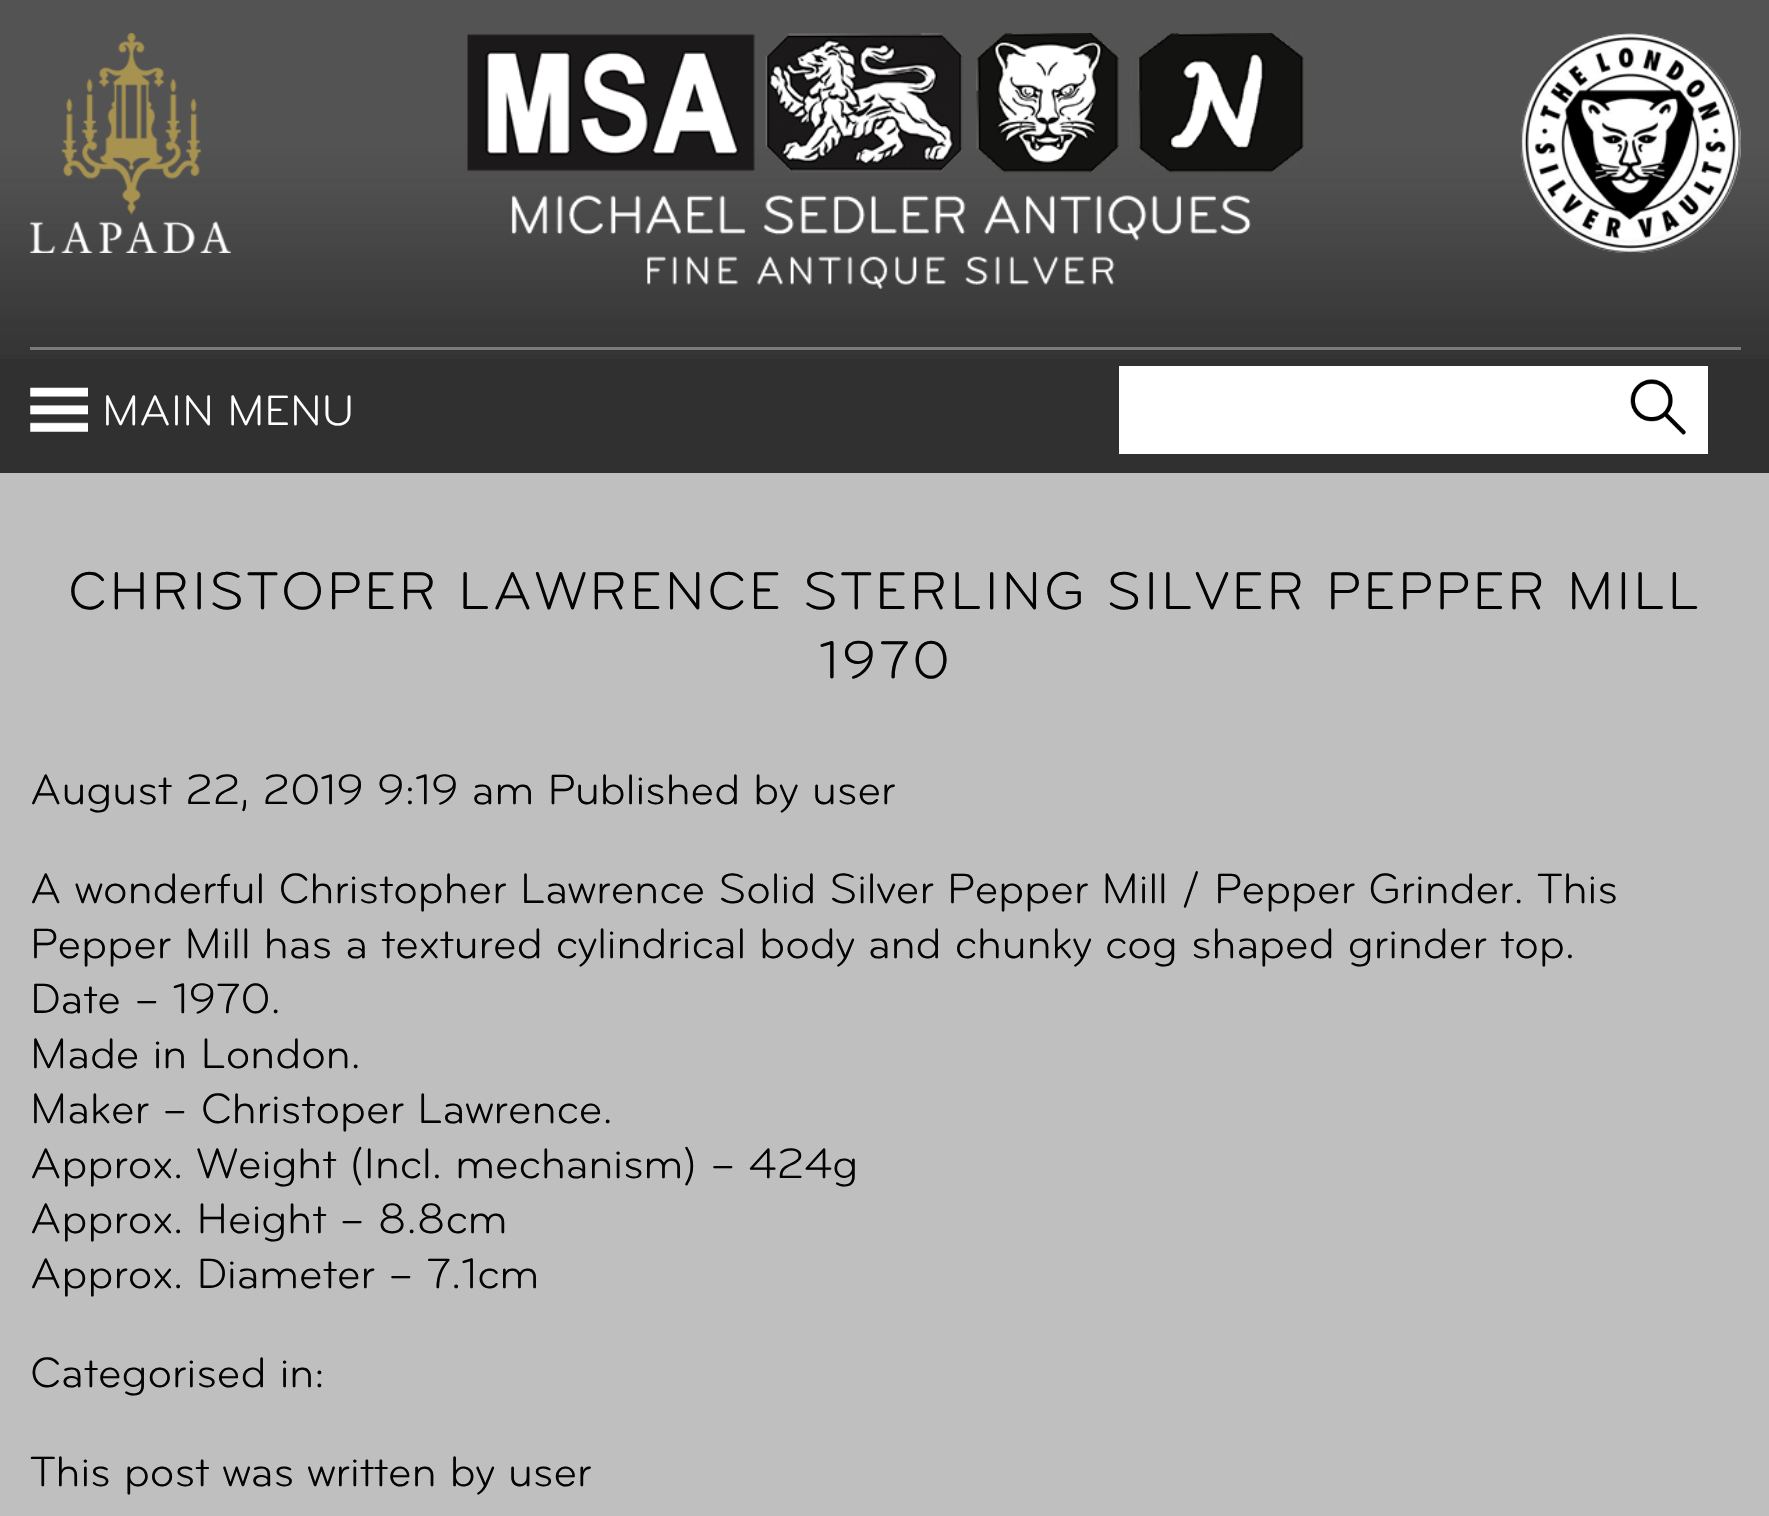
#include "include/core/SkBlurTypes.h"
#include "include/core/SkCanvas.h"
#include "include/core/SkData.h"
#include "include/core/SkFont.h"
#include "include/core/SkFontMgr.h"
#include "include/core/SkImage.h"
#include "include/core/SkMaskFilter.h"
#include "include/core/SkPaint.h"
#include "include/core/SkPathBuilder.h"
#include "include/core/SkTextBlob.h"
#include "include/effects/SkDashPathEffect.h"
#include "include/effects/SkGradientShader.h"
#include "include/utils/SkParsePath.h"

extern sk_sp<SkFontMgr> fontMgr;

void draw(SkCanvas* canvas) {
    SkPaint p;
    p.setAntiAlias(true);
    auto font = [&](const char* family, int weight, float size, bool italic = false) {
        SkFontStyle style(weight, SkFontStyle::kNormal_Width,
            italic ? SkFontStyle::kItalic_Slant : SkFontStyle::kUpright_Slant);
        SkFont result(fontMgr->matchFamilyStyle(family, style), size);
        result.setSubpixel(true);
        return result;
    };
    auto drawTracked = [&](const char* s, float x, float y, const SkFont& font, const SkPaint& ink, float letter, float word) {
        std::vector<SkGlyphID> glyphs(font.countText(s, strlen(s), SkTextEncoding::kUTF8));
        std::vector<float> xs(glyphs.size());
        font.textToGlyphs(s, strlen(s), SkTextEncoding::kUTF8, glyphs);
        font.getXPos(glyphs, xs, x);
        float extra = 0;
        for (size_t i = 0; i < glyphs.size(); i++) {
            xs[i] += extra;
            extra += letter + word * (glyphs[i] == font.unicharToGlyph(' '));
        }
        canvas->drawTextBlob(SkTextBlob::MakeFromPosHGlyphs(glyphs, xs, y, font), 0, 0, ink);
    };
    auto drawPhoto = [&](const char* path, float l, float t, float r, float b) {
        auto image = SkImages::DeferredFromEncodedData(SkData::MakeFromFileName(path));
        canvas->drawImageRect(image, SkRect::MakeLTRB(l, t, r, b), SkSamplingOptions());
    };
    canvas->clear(0xFFBFBFBF);
    p.setColor(0xFF303030);
    canvas->drawRect(SkRect::MakeLTRB(0, 0, 1769, 473), p);
    drawPhoto("media/1.png", 0, 0, 1769, 359);
    drawPhoto("media/2.png", 30, 33, 231, 253);
    drawPhoto("media/3.png", 467, 33, 1304, 289);
    drawPhoto("media/4.png", 1520, 33, 1741, 253);
    p.setColor(0xFF7A7A7A);
    canvas->drawRect(SkRect::MakeLTRB(30, 347, 1741, 350), p);
    drawPhoto("media/5.png", 30, 387, 88, 432);
    auto font1 = font("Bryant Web", 400, 44);
    p.setColor(0xFFFFFFFF);
    canvas->drawString("MAIN MENU", 102, 425, font1, p);
    canvas->drawRect(SkRect::MakeLTRB(1119, 366, 1708, 454), p);
    drawPhoto("media/6.png", 1630, 379, 1686, 435);
    auto font2 = font("Bryant Web", 400, 55);
    p.setColor(0xFF030303);
    drawTracked("CHRISTOPER LAWRENCE STERLING SILVER PEPPER MILL", 68, 609, font2, p, 2.75f, 0);
    drawTracked("1970", 819, 678, font2, p, 2.75f, 0);
    {
        const struct { const char* s; float x, y; } items[] = {
            {"August 22, 2019 9:19 am Published by", 30, 804},
            {"user", 812, 804},
            {"A wonderful Christopher Lawrence Solid Silver Pepper Mill / Pepper Grinder. This", 30, 903},
            {"Pepper Mill has a textured cylindrical body and chunky cog shaped grinder top.", 30, 958},
            {"Date – 1970.", 30, 1013},
            {"Made in London.", 30, 1068},
            {"Maker – Christoper Lawrence.", 30, 1123},
            {"Approx. Weight (Incl. mechanism) – 424g", 30, 1178},
            {"Approx. Height – 8.8cm", 30, 1233},
            {"Approx. Diameter – 7.1cm", 30, 1288},
            {"Categorised in:", 30, 1387},
            {"This post was written by user", 30, 1486},
        };
        for (auto [s, x, y] : items) {
            canvas->drawString(s, x, y, font1, p);
        }
    }
}
